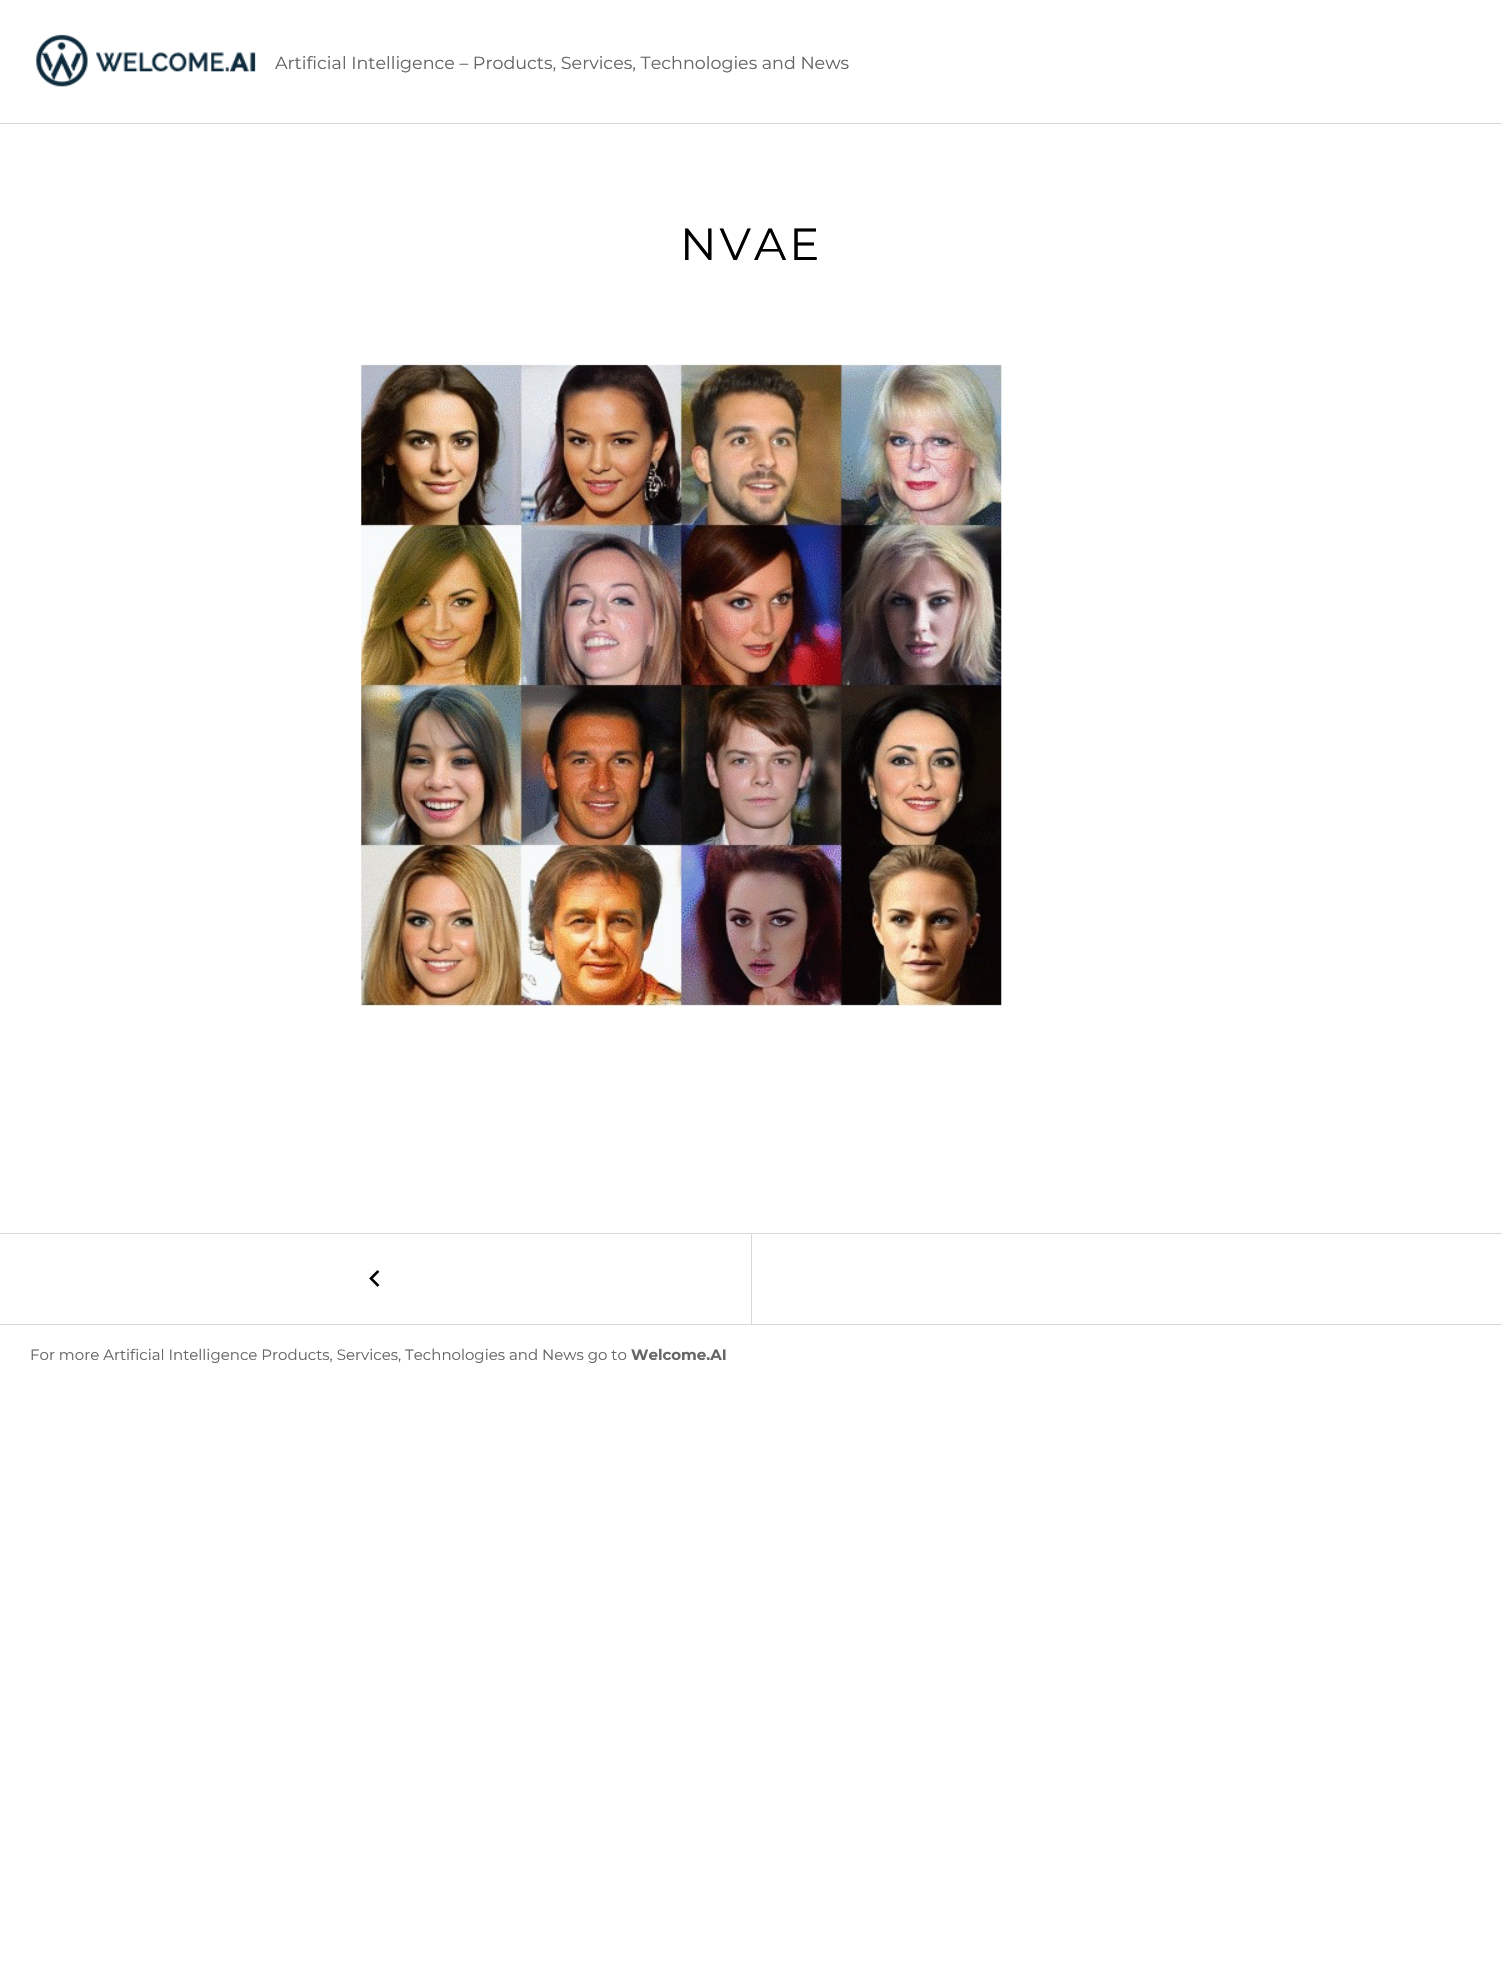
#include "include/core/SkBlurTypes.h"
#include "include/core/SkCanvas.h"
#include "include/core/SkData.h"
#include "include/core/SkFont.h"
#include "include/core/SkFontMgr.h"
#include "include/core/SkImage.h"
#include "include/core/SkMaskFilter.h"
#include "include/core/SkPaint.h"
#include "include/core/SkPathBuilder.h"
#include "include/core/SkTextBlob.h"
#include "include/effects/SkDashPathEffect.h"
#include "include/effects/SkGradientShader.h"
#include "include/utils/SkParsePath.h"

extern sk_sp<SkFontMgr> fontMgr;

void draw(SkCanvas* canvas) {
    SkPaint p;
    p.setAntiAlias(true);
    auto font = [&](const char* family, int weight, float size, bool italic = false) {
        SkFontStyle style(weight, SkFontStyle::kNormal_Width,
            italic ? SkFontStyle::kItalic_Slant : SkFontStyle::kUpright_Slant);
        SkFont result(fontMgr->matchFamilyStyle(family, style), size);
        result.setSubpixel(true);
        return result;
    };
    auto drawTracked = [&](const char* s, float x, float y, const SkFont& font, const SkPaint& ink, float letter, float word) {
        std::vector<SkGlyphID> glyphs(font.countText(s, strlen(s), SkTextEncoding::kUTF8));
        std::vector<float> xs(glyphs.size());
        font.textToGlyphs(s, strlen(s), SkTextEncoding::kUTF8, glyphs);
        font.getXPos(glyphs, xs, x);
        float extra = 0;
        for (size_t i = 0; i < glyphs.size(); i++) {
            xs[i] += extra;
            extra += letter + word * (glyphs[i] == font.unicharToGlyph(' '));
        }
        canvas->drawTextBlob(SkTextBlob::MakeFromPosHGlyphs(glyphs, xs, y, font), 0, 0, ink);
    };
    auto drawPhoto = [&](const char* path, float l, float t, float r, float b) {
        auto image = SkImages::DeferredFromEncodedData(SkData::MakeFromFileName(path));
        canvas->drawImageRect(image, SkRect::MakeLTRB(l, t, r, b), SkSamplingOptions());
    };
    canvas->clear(0xFFFFFFFF);
    p.setColor(0xFFD9D9D9);
    canvas->drawRect(SkRect::MakeLTRB(0, 123, 1502, 124), p);
    drawPhoto("media/1.png", 36, 34, 256, 87);
    auto font1 = font("Montserrat", 400, 17.5f);
    p.setColor(0xFF666666);
    canvas->drawString("Artificial Intelligence – Products, Services, Technologies and News", 275, 69, font1, p);
    auto font2 = font("Montserrat", 400, 45);
    p.setColor(0xFF000000);
    drawTracked("NVAE", 680, 260, font2, p, 3, 0);
    drawPhoto("media/2.png", 361, 363, 1002, 1007);
    p.setColor(0xFFD9D9D9);
    canvas->drawRect(SkRect::MakeLTRB(0, 1233, 1502, 1234), p);
    drawPhoto("media/3.png", 369, 1270, 380, 1287);
    canvas->drawRect(SkRect::MakeLTRB(751, 1234, 752, 1324), p);
    canvas->drawRect(SkRect::MakeLTRB(0, 1324, 1502, 1325), p);
    auto font3 = font("Montserrat", 400, 15);
    p.setColor(0xFF666666);
    canvas->drawString("For more Artificial Intelligence Products, Services, Technologies and News go to", 30, 1360, font3, p);
    auto font4 = font("Montserrat", 700, 15);
    canvas->drawString("Welcome.AI", 631, 1360, font4, p);
}
